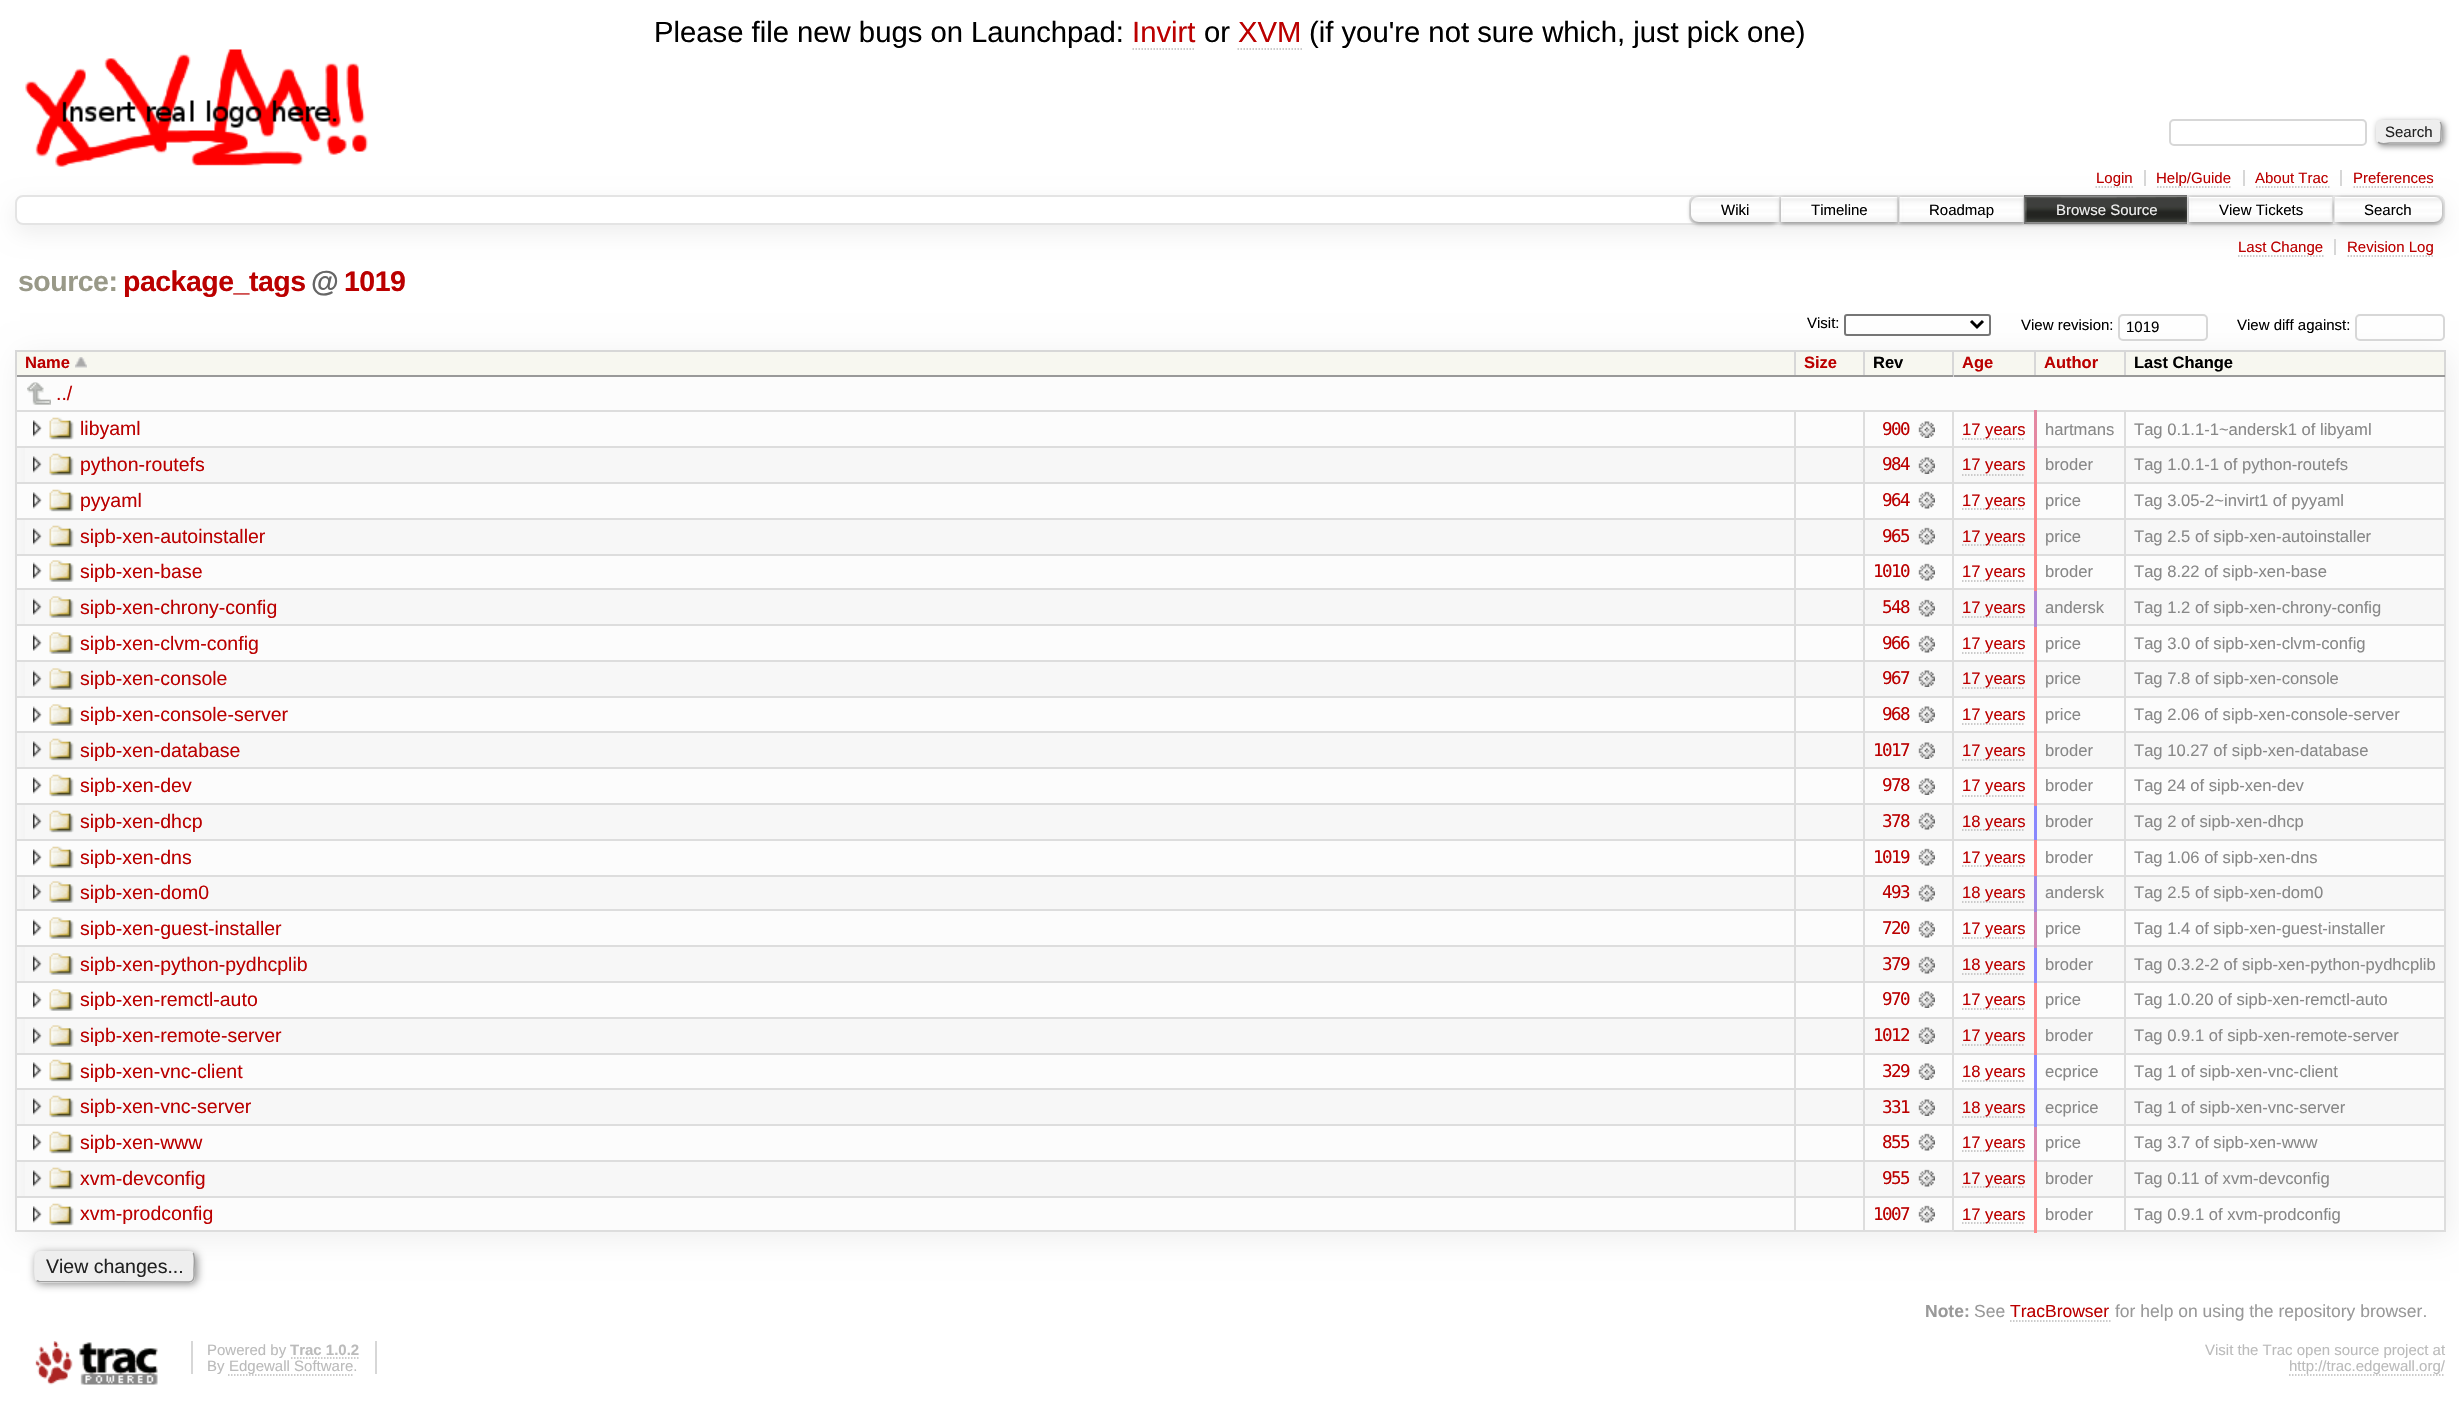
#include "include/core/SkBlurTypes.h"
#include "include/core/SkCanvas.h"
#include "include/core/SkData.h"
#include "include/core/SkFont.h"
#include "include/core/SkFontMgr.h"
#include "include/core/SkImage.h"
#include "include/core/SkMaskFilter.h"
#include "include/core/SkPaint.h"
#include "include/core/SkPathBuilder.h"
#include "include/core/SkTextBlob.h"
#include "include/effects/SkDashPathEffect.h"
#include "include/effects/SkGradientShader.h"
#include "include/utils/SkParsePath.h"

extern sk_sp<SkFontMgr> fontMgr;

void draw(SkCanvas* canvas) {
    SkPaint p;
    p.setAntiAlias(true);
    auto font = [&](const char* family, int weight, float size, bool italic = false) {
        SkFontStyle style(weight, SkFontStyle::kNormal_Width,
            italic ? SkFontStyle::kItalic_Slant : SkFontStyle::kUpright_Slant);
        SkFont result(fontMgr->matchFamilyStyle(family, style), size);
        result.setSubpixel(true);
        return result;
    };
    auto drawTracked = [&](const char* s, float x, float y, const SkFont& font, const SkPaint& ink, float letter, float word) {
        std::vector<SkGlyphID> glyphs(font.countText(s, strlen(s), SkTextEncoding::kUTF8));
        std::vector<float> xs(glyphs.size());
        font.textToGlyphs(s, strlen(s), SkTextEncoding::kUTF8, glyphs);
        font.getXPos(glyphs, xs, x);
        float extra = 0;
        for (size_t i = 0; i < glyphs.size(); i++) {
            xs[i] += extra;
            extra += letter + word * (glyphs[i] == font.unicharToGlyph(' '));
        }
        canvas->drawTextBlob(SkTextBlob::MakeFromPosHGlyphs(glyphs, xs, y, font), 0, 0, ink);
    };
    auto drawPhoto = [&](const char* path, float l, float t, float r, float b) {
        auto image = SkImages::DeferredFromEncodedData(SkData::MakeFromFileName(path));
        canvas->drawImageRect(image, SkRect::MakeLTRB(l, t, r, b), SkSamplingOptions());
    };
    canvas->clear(0xFFFFFFFF);
    auto font1 = font("Liberation Sans", 400, 29.25f);
    p.setColor(0xFF000000);
    canvas->drawString("Please file new bugs on Launchpad:", 654, 42, font1, p);
    p.setColor(0xFFBB0000);
    canvas->drawString("Invirt", 1132, 42, font1, p);
    p.setStyle(SkPaint::kStroke_Style);
    p.setStrokeWidth(1.5f);
    p.setColor(0xFFBBBBBB);
    p.setPathEffect(SkDashPathEffect::Make({{1.5f, 1.5f}}, 0));
    canvas->drawPath(SkPathBuilder().moveTo(1132.5f, 49).lineTo(1195.5f, 49).detach(), p);
    p.setPathEffect(nullptr);
    p.setStyle(SkPaint::kFill_Style);
    p.setColor(0xFF000000);
    canvas->drawString("or", 1204, 42, font1, p);
    p.setColor(0xFFBB0000);
    canvas->drawString("XVM", 1238, 42, font1, p);
    p.setStyle(SkPaint::kStroke_Style);
    p.setColor(0xFFBBBBBB);
    p.setPathEffect(SkDashPathEffect::Make({{1.5f, 1.5f}}, 0));
    canvas->drawPath(SkPathBuilder().moveTo(1237.5f, 49).lineTo(1302, 49).detach(), p);
    p.setPathEffect(nullptr);
    p.setStyle(SkPaint::kFill_Style);
    p.setColor(0xFF000000);
    canvas->drawString("(if you're not sure which, just pick one)", 1309, 42, font1, p);
    drawPhoto("media/1.png", 25, 49, 368, 167);
    p.setStyle(SkPaint::kStroke_Style);
    p.setStrokeWidth(2);
    p.setColor(0xFFD7D7D7);
    canvas->drawRoundRect(SkRect::MakeLTRB(2170, 120, 2366, 145), 4, 4, p);
    p.setStyle(SkPaint::kFill_Style);
    p.setColor(0xFF888888);
    p.setMaskFilter(SkMaskFilter::MakeBlur(kNormal_SkBlurStyle, 3));
    canvas->drawRoundRect(SkRect::MakeLTRB(2378, 122, 2444, 146), 5, 5, p);
    p.setMaskFilter(nullptr);
    p.setColor(0xFFEEEEEE);
    canvas->drawRoundRect(SkRect::MakeLTRB(2376, 120, 2442, 144), 5, 5, p);
    p.setStyle(SkPaint::kStroke_Style);
    p.setStrokeWidth(1.5f);
    p.setColor(0xFF9F9F9F);
    canvas->drawPath(SkPathBuilder().moveTo(2440, 122).cubicTo(2442.5f, 124, 2441, 129, 2441, 132).cubicTo(2441, 145, 2442, 143, 2428, 143).lineTo(2390, 143).cubicTo(2389.5f, 143, 2380.5f, 145, 2378, 142).detach(), p);
    p.setColor(0xFFEEEEEE);
    canvas->drawPath(SkPathBuilder().moveTo(2378, 142).cubicTo(2375.5f, 140, 2377, 135, 2377, 132).cubicTo(2377, 119, 2376, 121, 2390, 121).lineTo(2428, 121).cubicTo(2428.5f, 121, 2437.5f, 119, 2440, 122).detach(), p);
    auto font2 = font("Liberation Sans", 400, 15);
    p.setStyle(SkPaint::kFill_Style);
    p.setColor(0xFF222222);
    canvas->drawString("Search", 2385, 137, font2, p);
    canvas->save();
    canvas->clipPath(SkPathBuilder(SkPathFillType::kEvenOdd).moveTo(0, 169).lineTo(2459, 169).lineTo(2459, 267).lineTo(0, 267).close().moveTo(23, 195).lineTo(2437, 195).cubicTo(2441.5f, 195, 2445, 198.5f, 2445, 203).lineTo(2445, 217).cubicTo(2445, 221.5f, 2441.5f, 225, 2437, 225).lineTo(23, 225).cubicTo(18.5f, 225, 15, 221.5f, 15, 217).lineTo(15, 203).cubicTo(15, 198.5f, 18.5f, 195, 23, 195).close().detach(), true);
    p.setColor(0xFFEEEEEE);
    p.setMaskFilter(SkMaskFilter::MakeBlur(kNormal_SkBlurStyle, 11));
    canvas->drawRoundRect(SkRect::MakeLTRB(15, 203, 2445, 233), 8, 8, p);
    p.setMaskFilter(nullptr);
    canvas->restore();
    p.setColor(0xFFD7D7D7);
    canvas->drawRect(SkRect::MakeLTRB(2144, 170, 2146, 186), p);
    p.setStyle(SkPaint::kStroke_Style);
    p.setColor(0xFFBBBBBB);
    p.setPathEffect(SkDashPathEffect::Make({{1.5f, 1.5f}}, 0));
    canvas->drawPath(SkPathBuilder().moveTo(2095.5f, 187).lineTo(2133, 187).detach(), p);
    p.setPathEffect(nullptr);
    p.setStyle(SkPaint::kFill_Style);
    p.setColor(0xFFBB0000);
    canvas->drawString("Login", 2096, 183, font2, p);
    p.setColor(0xFFD7D7D7);
    canvas->drawRect(SkRect::MakeLTRB(2243, 170, 2245, 186), p);
    p.setStyle(SkPaint::kStroke_Style);
    p.setColor(0xFFBBBBBB);
    p.setPathEffect(SkDashPathEffect::Make({{1.5f, 1.5f}}, 0));
    canvas->drawPath(SkPathBuilder().moveTo(2157, 187).lineTo(2232, 187).detach(), p);
    p.setPathEffect(nullptr);
    p.setStyle(SkPaint::kFill_Style);
    p.setColor(0xFFBB0000);
    canvas->drawString("Help/Guide", 2156, 183, font2, p);
    p.setColor(0xFFD7D7D7);
    canvas->drawRect(SkRect::MakeLTRB(2340, 170, 2342, 186), p);
    p.setColor(0xFFBB0000);
    canvas->drawString("About Trac", 2255, 183, font2, p);
    p.setStyle(SkPaint::kStroke_Style);
    p.setColor(0xFFBBBBBB);
    p.setPathEffect(SkDashPathEffect::Make({{1.5f, 1.5f}}, 0));
    canvas->drawPath(SkPathBuilder().moveTo(2256, 187).lineTo(2329.5f, 187).detach(), p);
    p.setPathEffect(nullptr);
    p.setStyle(SkPaint::kFill_Style);
    p.setColor(0xFFBB0000);
    canvas->drawString("Preferences", 2353, 183, font2, p);
    p.setStyle(SkPaint::kStroke_Style);
    p.setColor(0xFFBBBBBB);
    p.setPathEffect(SkDashPathEffect::Make({{1.5f, 1.5f}}, 0));
    canvas->drawPath(SkPathBuilder().moveTo(2353.5f, 187).lineTo(2434.5f, 187).detach(), p);
    p.setPathEffect(nullptr);
    p.setStrokeWidth(2);
    p.setColor(0xFFE4E4E4);
    canvas->drawRoundRect(SkRect::MakeLTRB(16, 196, 2444, 224), 7, 7, p);
    p.setStyle(SkPaint::kFill_Style);
    p.setColor(0xFFFFFFFF);
    canvas->drawPath(SkPathBuilder().moveTo(1697, 195).lineTo(1781, 195).lineTo(1781, 224).lineTo(1697, 224).cubicTo(1692.5f, 224, 1689, 220.5f, 1689, 216).lineTo(1689, 203).cubicTo(1689, 198.5f, 1692.5f, 195, 1697, 195).close().detach(), p);
    drawPhoto("media/2.png", 1689, 198, 1779, 223);
    p.setStyle(SkPaint::kStroke_Style);
    p.setColor(0xFFE4E4E4);
    canvas->drawPath(SkPathBuilder().moveTo(1697, 196).lineTo(1780, 196).lineTo(1780, 223).lineTo(1697, 223).cubicTo(1693, 223, 1690, 220, 1690, 216).lineTo(1690, 203).cubicTo(1690, 199, 1693, 196, 1697, 196).close().detach(), p);
    canvas->save();
    canvas->clipPath(SkPathBuilder(SkPathFillType::kEvenOdd).moveTo(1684, 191).lineTo(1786, 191).lineTo(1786, 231).lineTo(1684, 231).close().moveTo(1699, 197).lineTo(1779, 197).lineTo(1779, 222).lineTo(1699, 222).cubicTo(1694.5f, 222, 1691, 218.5f, 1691, 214).lineTo(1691, 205).cubicTo(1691, 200.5f, 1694.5f, 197, 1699, 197).close().detach(), true);
    p.setStyle(SkPaint::kFill_Style);
    p.setColor(0xFF999999);
    p.setMaskFilter(SkMaskFilter::MakeBlur(kNormal_SkBlurStyle, 2));
    canvas->drawRoundRect(SkRect::MakeLTRB(1691, 198, 1779, 224), 8, 8, p);
    p.setMaskFilter(nullptr);
    canvas->restore();
    p.setColor(0xFF000000);
    canvas->drawString("Wiki", 1721, 215, font2, p);
    p.setColor(0xFFFFFFFF);
    canvas->drawRect(SkRect::MakeLTRB(1781, 201, 1783, 221), p);
    drawPhoto("media/3.png", 1781, 198, 1897, 222);
    p.setStyle(SkPaint::kStroke_Style);
    p.setColor(0xFFE4E4E4);
    canvas->drawRect(SkRect::MakeLTRB(1780, 196, 1898, 223), p);
    canvas->save();
    canvas->clipPath(SkPathBuilder(SkPathFillType::kEvenOdd).moveTo(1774, 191).lineTo(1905, 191).lineTo(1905, 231).lineTo(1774, 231).close().moveTo(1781, 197).lineTo(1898, 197).lineTo(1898, 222).lineTo(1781, 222).close().detach(), true);
    p.setStyle(SkPaint::kFill_Style);
    p.setColor(0xFF999999);
    p.setMaskFilter(SkMaskFilter::MakeBlur(kNormal_SkBlurStyle, 2));
    canvas->drawRect(SkRect::MakeLTRB(1781, 198, 1898, 224), p);
    p.setMaskFilter(nullptr);
    canvas->restore();
    p.setColor(0xFF000000);
    canvas->drawString("Timeline", 1811, 215, font2, p);
    p.setColor(0xFFFFFFFF);
    canvas->drawRect(SkRect::MakeLTRB(1900, 197, 1902, 222), p);
    drawPhoto("media/4.png", 1897, 198, 2023, 222);
    p.setStyle(SkPaint::kStroke_Style);
    p.setColor(0xFFE4E4E4);
    canvas->drawRect(SkRect::MakeLTRB(1899, 196, 2024, 223), p);
    canvas->save();
    canvas->clipPath(SkPathBuilder(SkPathFillType::kEvenOdd).moveTo(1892, 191).lineTo(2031, 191).lineTo(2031, 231).lineTo(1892, 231).close().moveTo(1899, 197).lineTo(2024, 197).lineTo(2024, 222).lineTo(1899, 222).close().detach(), true);
    p.setStyle(SkPaint::kFill_Style);
    p.setColor(0xFF999999);
    p.setMaskFilter(SkMaskFilter::MakeBlur(kNormal_SkBlurStyle, 2));
    canvas->drawRect(SkRect::MakeLTRB(1899, 198, 2024, 224), p);
    p.setMaskFilter(nullptr);
    canvas->restore();
    p.setColor(0xFF000000);
    canvas->drawString("Roadmap", 1929, 215, font2, p);
    drawPhoto("media/5.png", 2023, 198, 2024, 207);
    p.setStyle(SkPaint::kStroke_Style);
    p.setColor(0xFF666666);
    canvas->drawRect(SkRect::MakeLTRB(2025, 196, 2188, 223), p);
    p.setStyle(SkPaint::kFill_Style);
    p.setColor(0xFF999999);
    p.setMaskFilter(SkMaskFilter::MakeBlur(kNormal_SkBlurStyle, 2));
    canvas->drawRect(SkRect::MakeLTRB(2025, 198, 2187, 224), p);
    p.setMaskFilter(nullptr);
    p.setColor(0xFF000000);
    canvas->drawRect(SkRect::MakeLTRB(2025, 197, 2187, 222), p);
    drawPhoto("media/6.png", 2025, 196, 2187, 222);
    p.setColor(0xFFEEEEEE);
    canvas->drawString("Browse Source", 2056, 215, font2, p);
    p.setColor(0xFFFFFFFF);
    canvas->drawRect(SkRect::MakeLTRB(2189, 197, 2191, 222), p);
    drawPhoto("media/7.png", 2189, 198, 2332, 222);
    p.setStyle(SkPaint::kStroke_Style);
    p.setColor(0xFFE4E4E4);
    canvas->drawRect(SkRect::MakeLTRB(2188, 196, 2333, 223), p);
    canvas->save();
    canvas->clipPath(SkPathBuilder(SkPathFillType::kEvenOdd).moveTo(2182, 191).lineTo(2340, 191).lineTo(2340, 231).lineTo(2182, 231).close().moveTo(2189, 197).lineTo(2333, 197).lineTo(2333, 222).lineTo(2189, 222).close().detach(), true);
    p.setStyle(SkPaint::kFill_Style);
    p.setColor(0xFF999999);
    p.setMaskFilter(SkMaskFilter::MakeBlur(kNormal_SkBlurStyle, 2));
    canvas->drawRect(SkRect::MakeLTRB(2189, 198, 2333, 224), p);
    p.setMaskFilter(nullptr);
    canvas->restore();
    p.setColor(0xFF000000);
    canvas->drawString("View Tickets", 2219, 215, font2, p);
    p.setColor(0xFFFFFFFF);
    canvas->drawPath(SkPathBuilder().moveTo(2333, 195).lineTo(2436, 195).cubicTo(2440.5f, 195, 2444, 198.5f, 2444, 203).lineTo(2444, 216).cubicTo(2444, 220.5f, 2440.5f, 224, 2436, 224).lineTo(2333, 224).close().detach(), p);
    drawPhoto("media/8.png", 2335, 198, 2443, 222);
    p.setStyle(SkPaint::kStroke_Style);
    p.setColor(0xFFE4E4E4);
    canvas->drawPath(SkPathBuilder().moveTo(2334, 196).lineTo(2436, 196).cubicTo(2440, 196, 2443, 199, 2443, 203).lineTo(2443, 216).cubicTo(2443, 220, 2440, 223, 2436, 223).lineTo(2334, 223).close().detach(), p);
    canvas->save();
    canvas->clipPath(SkPathBuilder(SkPathFillType::kEvenOdd).moveTo(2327, 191).lineTo(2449, 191).lineTo(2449, 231).lineTo(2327, 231).close().moveTo(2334, 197).lineTo(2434, 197).cubicTo(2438.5f, 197, 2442, 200.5f, 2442, 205).lineTo(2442, 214).cubicTo(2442, 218.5f, 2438.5f, 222, 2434, 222).lineTo(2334, 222).close().detach(), true);
    p.setStyle(SkPaint::kFill_Style);
    p.setColor(0xFF999999);
    p.setMaskFilter(SkMaskFilter::MakeBlur(kNormal_SkBlurStyle, 2));
    canvas->drawRoundRect(SkRect::MakeLTRB(2334, 198, 2442, 224), 8, 8, p);
    p.setMaskFilter(nullptr);
    canvas->restore();
    p.setColor(0xFF000000);
    canvas->drawString("Search", 2364, 215, font2, p);
    p.setColor(0xFFD7D7D7);
    canvas->drawRect(SkRect::MakeLTRB(2334, 239, 2336, 255), p);
    p.setStyle(SkPaint::kStroke_Style);
    p.setStrokeWidth(1.5f);
    p.setColor(0xFFBBBBBB);
    p.setPathEffect(SkDashPathEffect::Make({{1.5f, 1.5f}}, 0));
    canvas->drawPath(SkPathBuilder().moveTo(2238, 256).lineTo(2323.5f, 256).detach(), p);
    p.setPathEffect(nullptr);
    p.setStyle(SkPaint::kFill_Style);
    p.setColor(0xFFBB0000);
    canvas->drawString("Last Change", 2238, 252, font2, p);
    p.setStyle(SkPaint::kStroke_Style);
    p.setColor(0xFFBBBBBB);
    p.setPathEffect(SkDashPathEffect::Make({{1.5f, 1.5f}}, 0));
    canvas->drawPath(SkPathBuilder().moveTo(2347.5f, 256).lineTo(2434.5f, 256).detach(), p);
    p.setPathEffect(nullptr);
    p.setStyle(SkPaint::kFill_Style);
    p.setColor(0xFFBB0000);
    canvas->drawString("Revision Log", 2347, 252, font2, p);
    auto font3 = font("Liberation Sans", 700, 28.5f);
    p.setColor(0xFF999988);
    drawTracked("source:", 18, 291, font3, p, -0.5f, 0);
    p.setColor(0xFFBB0000);
    drawTracked("package_tags", 123, 291, font3, p, -0.5f, 0);
    p.setColor(0xFF666666);
    drawTracked("@", 311, 291, font3, p, -0.5f, 0);
    p.setColor(0xFFBB0000);
    drawTracked("1019", 344, 291, font3, p, -0.5f, 0);
    p.setColor(0xFFEEEEEE);
    p.setMaskFilter(SkMaskFilter::MakeBlur(kNormal_SkBlurStyle, 14.5f));
    canvas->drawRect(SkRect::MakeLTRB(20, 356, 2450, 1238), p);
    p.setMaskFilter(nullptr);
    p.setColor(0xFF000000);
    canvas->drawString("Visit:", 1807, 328, font2, p);
    p.setStyle(SkPaint::kStroke_Style);
    p.setStrokeWidth(2);
    p.setColor(0xFF767676);
    canvas->drawRoundRect(SkRect::MakeLTRB(1845, 315, 1990, 335), 2, 2, p);
    p.setStrokeWidth(3);
    p.setColor(0xFF000000);
    canvas->drawPath(SkPathBuilder().moveTo(1971, 321).lineTo(1977, 327).lineTo(1983, 321).detach(), p);
    p.setStyle(SkPaint::kFill_Style);
    canvas->drawString("View revision:", 2021, 330, font2, p);
    p.setStyle(SkPaint::kStroke_Style);
    p.setStrokeWidth(2);
    p.setColor(0xFFD7D7D7);
    canvas->drawRoundRect(SkRect::MakeLTRB(2119, 315, 2207, 340), 4, 4, p);
    p.setStyle(SkPaint::kFill_Style);
    p.setColor(0xFF000000);
    canvas->drawString("1019", 2126, 332, font2, p);
    canvas->drawString("View diff against:", 2237, 330, font2, p);
    p.setStyle(SkPaint::kStroke_Style);
    p.setColor(0xFFD7D7D7);
    canvas->drawRoundRect(SkRect::MakeLTRB(2356, 315, 2444, 340), 4, 4, p);
    p.setStyle(SkPaint::kFill_Style);
    {
        const struct { float l, t, r, b; SkColor color; } items[] = {
            {1954, 1230, 2034, 1232, 0xFFD7D7D7},
            {17, 352, 2444, 375, 0xFFF7F7F0},
            {2124, 350, 2445, 352, 0xFFD7D7D7},
            {15, 410, 2445, 412, 0xFFDDDDDD},
            {15, 446, 2445, 448, 0xFFDDDDDD},
            {15, 482, 2445, 484, 0xFFDDDDDD},
            {15, 518, 2445, 520, 0xFFDDDDDD},
            {15, 554, 2445, 556, 0xFFDDDDDD},
            {15, 588, 2445, 590, 0xFFDDDDDD},
            {15, 624, 2445, 626, 0xFFDDDDDD},
            {15, 660, 2445, 662, 0xFFDDDDDD},
            {15, 696, 2445, 698, 0xFFDDDDDD},
            {15, 731, 2445, 733, 0xFFDDDDDD},
            {15, 767, 2445, 769, 0xFFDDDDDD},
            {15, 803, 2445, 805, 0xFFDDDDDD},
            {15, 839, 2445, 841, 0xFFDDDDDD},
            {15, 875, 2445, 877, 0xFFDDDDDD},
            {15, 909, 2445, 911, 0xFFDDDDDD},
            {15, 945, 2445, 947, 0xFFDDDDDD},
            {15, 981, 2445, 983, 0xFFDDDDDD},
            {15, 1017, 2445, 1019, 0xFFDDDDDD},
            {15, 1053, 2445, 1055, 0xFFDDDDDD},
            {15, 1088, 2445, 1090, 0xFFDDDDDD},
            {15, 1124, 2445, 1126, 0xFFDDDDDD},
            {15, 1160, 2445, 1162, 0xFFDDDDDD},
            {15, 1196, 2445, 1198, 0xFFDDDDDD},
            {2444, 375, 2446, 1232, 0xFFDDDDDD},
            {2444, 350, 2446, 377, 0xFFD7D7D7},
            {2124, 375, 2445, 377, 0xFF999999},
            {2124, 350, 2126, 377, 0xFFD7D7D7},
            {2034, 350, 2126, 352, 0xFFD7D7D7},
            {2034, 375, 2126, 377, 0xFF999999},
            {2034, 350, 2036, 377, 0xFFD7D7D7},
            {1952, 350, 2036, 352, 0xFFD7D7D7},
            {1952, 375, 2036, 377, 0xFF999999},
            {1952, 350, 1954, 377, 0xFFD7D7D7},
            {1863, 350, 1953, 352, 0xFFD7D7D7},
            {1863, 375, 1953, 377, 0xFF999999},
            {1863, 350, 1865, 377, 0xFFD7D7D7},
            {1794, 350, 1865, 352, 0xFFD7D7D7},
            {1794, 375, 1865, 377, 0xFF999999},
            {1794, 350, 1796, 377, 0xFFD7D7D7},
            {15, 350, 1796, 352, 0xFFD7D7D7},
            {17, 412, 2444, 446, 0xFFFCFCFC},
            {25, 448, 2444, 482, 0xFFF7F7F7},
            {17, 484, 2444, 518, 0xFFFCFCFC},
            {25, 520, 2444, 554, 0xFFF7F7F7},
            {17, 556, 2444, 588, 0xFFFCFCFC},
            {25, 590, 2444, 624, 0xFFF7F7F7},
            {17, 626, 2444, 660, 0xFFFCFCFC},
            {25, 662, 2444, 696, 0xFFF7F7F7},
            {17, 698, 2444, 731, 0xFFFCFCFC},
            {25, 733, 2444, 767, 0xFFF7F7F7},
            {17, 769, 2444, 803, 0xFFFCFCFC},
            {25, 805, 2444, 839, 0xFFF7F7F7},
            {17, 841, 2444, 875, 0xFFFCFCFC},
            {25, 877, 2444, 909, 0xFFF7F7F7},
            {17, 911, 2444, 945, 0xFFFCFCFC},
            {25, 947, 2444, 981, 0xFFF7F7F7},
            {17, 983, 2444, 1017, 0xFFFCFCFC},
            {25, 1019, 2444, 1053, 0xFFF7F7F7},
            {17, 1055, 2444, 1088, 0xFFFCFCFC},
            {25, 1090, 2444, 1124, 0xFFF7F7F7},
            {17, 1126, 2444, 1160, 0xFFFCFCFC},
            {25, 1162, 2444, 1196, 0xFFF7F7F7},
            {17, 1198, 2444, 1230, 0xFFFCFCFC},
            {1952, 410, 1954, 1232, 0xFFDDDDDD},
            {1863, 1230, 1953, 1232, 0xFFDDDDDD},
            {1863, 410, 1865, 1232, 0xFFDDDDDD},
            {1794, 1230, 1865, 1232, 0xFFDDDDDD},
            {1794, 410, 1796, 1232, 0xFFDDDDDD},
            {15, 1230, 1796, 1232, 0xFFDDDDDD},
            {15, 375, 17, 1232, 0xFFDDDDDD},
            {15, 375, 1796, 377, 0xFF999999},
            {15, 350, 17, 377, 0xFFD7D7D7},
        };
        for (auto [l, t, r, b, color] : items) {
            p.setColor(color);
            canvas->drawRect(SkRect::MakeLTRB(l, t, r, b), p);
        }
    }
    auto font4 = font("Liberation Sans", 700, 16.5f);
    p.setColor(0xFFBB0000);
    canvas->drawString("Name", 25, 368, font4, p);
    drawPhoto("media/9.png", 75, 357, 87, 368);
    canvas->drawString("Size", 1804, 368, font4, p);
    p.setColor(0xFF000000);
    canvas->drawString("Rev", 1873, 368, font4, p);
    p.setColor(0xFFBB0000);
    canvas->drawString("Age", 1962, 368, font4, p);
    canvas->drawString("Author", 2044, 368, font4, p);
    p.setColor(0xFF000000);
    canvas->drawString("Last Change", 2134, 368, font4, p);
    p.setColor(0xFFFCFCFC);
    canvas->drawRect(SkRect::MakeLTRB(17, 377, 2444, 410), p);
    drawPhoto("media/10.png", 27, 382, 51, 405);
    auto font5 = font("Liberation Sans", 400, 19.5f);
    p.setColor(0xFFBB0000);
    canvas->drawString("../", 56, 400, font5, p);
    drawPhoto("media/11.png", 33, 420, 42, 437);
    drawPhoto("media/12.png", 49, 417, 74, 440);
    canvas->drawString("libyaml", 80, 435, font5, p);
    auto font6 = font("DejaVu Sans Mono", 400, 17.5f);
    drawTracked("900", 1882, 435, font6, p, -1.5f, 0);
    drawPhoto("media/13.png", 1918, 421, 1935, 438);
    {
        const struct { float l, t, r, b; SkColor color; } items[] = {
            {2124, 1230, 2445, 1232, 0xFFDDDDDD},
            {2124, 410, 2126, 1232, 0xFFDDDDDD},
            {2034, 1230, 2126, 1232, 0xFFDDDDDD},
            {2034, 1194, 2037, 1233, 0xFFFE8888},
            {2034, 1158, 2037, 1197, 0xFFFD8889},
            {2034, 1124, 2037, 1161, 0xFFD888AE},
            {2034, 1088, 2037, 1127, 0xFF8888FE},
            {2034, 1052, 2037, 1091, 0xFF8888FF},
            {2034, 1016, 2037, 1055, 0xFFFE8888},
            {2034, 980, 2037, 1019, 0xFFFD8889},
            {2034, 945, 2037, 983, 0xFF8988FD},
            {2034, 909, 2037, 948, 0xFFD088B6},
            {2034, 873, 2037, 912, 0xFF9D88E9},
            {2034, 837, 2037, 876, 0xFFFF8888},
            {2034, 803, 2037, 840, 0xFF8988FD},
            {2034, 767, 2037, 806, 0xFFFD8889},
            {2034, 731, 2037, 770, 0xFFFE8888},
            {2034, 624, 2037, 734, 0xFFFD8889},
            {2034, 588, 2037, 627, 0xFFB088D6},
            {2034, 552, 2037, 591, 0xFFFE8888},
            {2034, 446, 2037, 555, 0xFFFD8889},
            {2034, 410, 2037, 449, 0xFFE488A2},
        };
        for (auto [l, t, r, b, color] : items) {
            p.setColor(color);
            canvas->drawRect(SkRect::MakeLTRB(l, t, r, b), p);
        }
    }
    p.setStyle(SkPaint::kStroke_Style);
    p.setStrokeWidth(1.5f);
    p.setColor(0xFFBBBBBB);
    p.setPathEffect(SkDashPathEffect::Make({{1.5f, 1.5f}}, 0));
    canvas->drawPath(SkPathBuilder().moveTo(1962, 439).lineTo(2025, 439).detach(), p);
    p.setPathEffect(nullptr);
    auto font7 = font("Liberation Sans", 400, 16.6f);
    p.setStyle(SkPaint::kFill_Style);
    p.setColor(0xFFBB0000);
    canvas->drawString("17 years", 1962, 435, font7, p);
    p.setColor(0xFF888888);
    canvas->drawString("hartmans", 2045, 435, font7, p);
    canvas->drawString("Tag 0.1.1-1~andersk1 of libyaml", 2134, 435, font7, p);
    drawPhoto("media/14.png", 33, 456, 42, 473);
    drawPhoto("media/15.png", 49, 453, 74, 476);
    p.setColor(0xFFBB0000);
    canvas->drawString("python-routefs", 80, 471, font5, p);
    drawTracked("984", 1882, 470, font6, p, -1.5f, 0);
    drawPhoto("media/16.png", 1918, 457, 1935, 474);
    canvas->drawString("17 years", 1962, 470, font7, p);
    p.setStyle(SkPaint::kStroke_Style);
    p.setColor(0xFFBBBBBB);
    p.setPathEffect(SkDashPathEffect::Make({{1.5f, 1.5f}}, 0));
    canvas->drawPath(SkPathBuilder().moveTo(1962, 475).lineTo(2025, 475).detach(), p);
    p.setPathEffect(nullptr);
    p.setStyle(SkPaint::kFill_Style);
    p.setColor(0xFF888888);
    canvas->drawString("broder", 2045, 470, font7, p);
    canvas->drawString("Tag 1.0.1-1 of python-routefs", 2134, 470, font7, p);
    drawPhoto("media/11.png", 33, 492, 42, 509);
    drawPhoto("media/12.png", 49, 489, 74, 512);
    p.setColor(0xFFBB0000);
    canvas->drawString("pyyaml", 80, 507, font5, p);
    drawTracked("964", 1882, 506, font6, p, -1.5f, 0);
    drawPhoto("media/17.png", 1918, 491, 1935, 509);
    p.setStyle(SkPaint::kStroke_Style);
    p.setColor(0xFFBBBBBB);
    p.setPathEffect(SkDashPathEffect::Make({{1.5f, 1.5f}}, 0));
    canvas->drawPath(SkPathBuilder().moveTo(1962, 509).lineTo(2025, 509).detach(), p);
    p.setPathEffect(nullptr);
    p.setStyle(SkPaint::kFill_Style);
    p.setColor(0xFFBB0000);
    canvas->drawString("17 years", 1962, 506, font7, p);
    p.setColor(0xFF888888);
    canvas->drawString("price", 2045, 506, font7, p);
    canvas->drawString("Tag 3.05-2~invirt1 of pyyaml", 2134, 506, font7, p);
    drawPhoto("media/14.png", 33, 528, 42, 545);
    drawPhoto("media/15.png", 49, 525, 74, 548);
    p.setColor(0xFFBB0000);
    canvas->drawString("sipb-xen-autoinstaller", 80, 543, font5, p);
    drawTracked("965", 1882, 542, font6, p, -1.5f, 0);
    drawPhoto("media/18.png", 1918, 527, 1935, 545);
    p.setStyle(SkPaint::kStroke_Style);
    p.setColor(0xFFBBBBBB);
    p.setPathEffect(SkDashPathEffect::Make({{1.5f, 1.5f}}, 0));
    canvas->drawPath(SkPathBuilder().moveTo(1962, 545).lineTo(2025, 545).detach(), p);
    p.setPathEffect(nullptr);
    p.setStyle(SkPaint::kFill_Style);
    p.setColor(0xFFBB0000);
    canvas->drawString("17 years", 1962, 542, font7, p);
    p.setColor(0xFF888888);
    canvas->drawString("price", 2045, 542, font7, p);
    canvas->drawString("Tag 2.5 of sipb-xen-autoinstaller", 2134, 542, font7, p);
    drawPhoto("media/19.png", 33, 562, 42, 579);
    drawPhoto("media/20.png", 49, 560, 74, 582);
    p.setColor(0xFFBB0000);
    canvas->drawString("sipb-xen-base", 80, 578, font5, p);
    drawTracked("1010", 1873, 577, font6, p, -1.5f, 0);
    drawPhoto("media/17.png", 1918, 563, 1935, 581);
    p.setStyle(SkPaint::kStroke_Style);
    p.setColor(0xFFBBBBBB);
    p.setPathEffect(SkDashPathEffect::Make({{1.5f, 1.5f}}, 0));
    canvas->drawPath(SkPathBuilder().moveTo(1962, 581).lineTo(2025, 581).detach(), p);
    p.setPathEffect(nullptr);
    p.setStyle(SkPaint::kFill_Style);
    p.setColor(0xFFBB0000);
    canvas->drawString("17 years", 1962, 577, font7, p);
    p.setColor(0xFF888888);
    canvas->drawString("broder", 2045, 577, font7, p);
    canvas->drawString("Tag 8.22 of sipb-xen-base", 2134, 577, font7, p);
    drawPhoto("media/21.png", 33, 598, 42, 615);
    drawPhoto("media/22.png", 49, 596, 74, 618);
    p.setColor(0xFFBB0000);
    canvas->drawString("sipb-xen-chrony-config", 80, 614, font5, p);
    drawTracked("548", 1882, 613, font6, p, -1.5f, 0);
    drawPhoto("media/18.png", 1918, 599, 1935, 617);
    p.setStyle(SkPaint::kStroke_Style);
    p.setColor(0xFFBBBBBB);
    p.setPathEffect(SkDashPathEffect::Make({{1.5f, 1.5f}}, 0));
    canvas->drawPath(SkPathBuilder().moveTo(1962, 617).lineTo(2025, 617).detach(), p);
    p.setPathEffect(nullptr);
    p.setStyle(SkPaint::kFill_Style);
    p.setColor(0xFFBB0000);
    canvas->drawString("17 years", 1962, 613, font7, p);
    p.setColor(0xFF888888);
    canvas->drawString("andersk", 2045, 613, font7, p);
    canvas->drawString("Tag 1.2 of sipb-xen-chrony-config", 2134, 613, font7, p);
    drawPhoto("media/19.png", 33, 634, 42, 651);
    drawPhoto("media/20.png", 49, 632, 74, 654);
    p.setColor(0xFFBB0000);
    canvas->drawString("sipb-xen-clvm-config", 80, 650, font5, p);
    drawTracked("966", 1882, 649, font6, p, -1.5f, 0);
    drawPhoto("media/17.png", 1918, 635, 1935, 653);
    p.setStyle(SkPaint::kStroke_Style);
    p.setColor(0xFFBBBBBB);
    p.setPathEffect(SkDashPathEffect::Make({{1.5f, 1.5f}}, 0));
    canvas->drawPath(SkPathBuilder().moveTo(1962, 653).lineTo(2025, 653).detach(), p);
    p.setPathEffect(nullptr);
    p.setStyle(SkPaint::kFill_Style);
    p.setColor(0xFFBB0000);
    canvas->drawString("17 years", 1962, 649, font7, p);
    p.setColor(0xFF888888);
    canvas->drawString("price", 2045, 649, font7, p);
    canvas->drawString("Tag 3.0 of sipb-xen-clvm-config", 2134, 649, font7, p);
    drawPhoto("media/21.png", 33, 670, 42, 687);
    drawPhoto("media/22.png", 49, 668, 74, 690);
    p.setColor(0xFFBB0000);
    canvas->drawString("sipb-xen-console", 80, 685, font5, p);
    drawTracked("967", 1882, 684, font6, p, -1.5f, 0);
    drawPhoto("media/16.png", 1918, 670, 1935, 687);
    p.setStyle(SkPaint::kStroke_Style);
    p.setColor(0xFFBBBBBB);
    p.setPathEffect(SkDashPathEffect::Make({{1.5f, 1.5f}}, 0));
    canvas->drawPath(SkPathBuilder().moveTo(1962, 688).lineTo(2025, 688).detach(), p);
    p.setPathEffect(nullptr);
    p.setStyle(SkPaint::kFill_Style);
    p.setColor(0xFFBB0000);
    canvas->drawString("17 years", 1962, 684, font7, p);
    p.setColor(0xFF888888);
    canvas->drawString("price", 2045, 684, font7, p);
    canvas->drawString("Tag 7.8 of sipb-xen-console", 2134, 684, font7, p);
    drawPhoto("media/19.png", 33, 706, 42, 723);
    drawPhoto("media/20.png", 49, 704, 74, 726);
    p.setColor(0xFFBB0000);
    canvas->drawString("sipb-xen-console-server", 80, 721, font5, p);
    drawTracked("968", 1882, 720, font6, p, -1.5f, 0);
    drawPhoto("media/13.png", 1918, 706, 1935, 723);
    p.setStyle(SkPaint::kStroke_Style);
    p.setColor(0xFFBBBBBB);
    p.setPathEffect(SkDashPathEffect::Make({{1.5f, 1.5f}}, 0));
    canvas->drawPath(SkPathBuilder().moveTo(1962, 724).lineTo(2025, 724).detach(), p);
    p.setPathEffect(nullptr);
    p.setStyle(SkPaint::kFill_Style);
    p.setColor(0xFFBB0000);
    canvas->drawString("17 years", 1962, 720, font7, p);
    p.setColor(0xFF888888);
    canvas->drawString("price", 2045, 720, font7, p);
    canvas->drawString("Tag 2.06 of sipb-xen-console-server", 2134, 720, font7, p);
    drawPhoto("media/14.png", 33, 741, 42, 758);
    drawPhoto("media/15.png", 49, 738, 74, 761);
    p.setColor(0xFFBB0000);
    canvas->drawString("sipb-xen-database", 80, 757, font5, p);
    drawTracked("1017", 1873, 756, font6, p, -1.5f, 0);
    drawPhoto("media/16.png", 1918, 742, 1935, 759);
    p.setStyle(SkPaint::kStroke_Style);
    p.setColor(0xFFBBBBBB);
    p.setPathEffect(SkDashPathEffect::Make({{1.5f, 1.5f}}, 0));
    canvas->drawPath(SkPathBuilder().moveTo(1962, 760).lineTo(2025, 760).detach(), p);
    p.setPathEffect(nullptr);
    p.setStyle(SkPaint::kFill_Style);
    p.setColor(0xFFBB0000);
    canvas->drawString("17 years", 1962, 756, font7, p);
    p.setColor(0xFF888888);
    canvas->drawString("broder", 2045, 756, font7, p);
    canvas->drawString("Tag 10.27 of sipb-xen-database", 2134, 756, font7, p);
    drawPhoto("media/11.png", 33, 777, 42, 794);
    drawPhoto("media/12.png", 49, 774, 74, 797);
    p.setColor(0xFFBB0000);
    canvas->drawString("sipb-xen-dev", 80, 792, font5, p);
    drawTracked("978", 1882, 791, font6, p, -1.5f, 0);
    drawPhoto("media/13.png", 1918, 778, 1935, 795);
    canvas->drawString("17 years", 1962, 791, font7, p);
    p.setStyle(SkPaint::kStroke_Style);
    p.setColor(0xFFBBBBBB);
    p.setPathEffect(SkDashPathEffect::Make({{1.5f, 1.5f}}, 0));
    canvas->drawPath(SkPathBuilder().moveTo(1962, 796).lineTo(2025, 796).detach(), p);
    p.setPathEffect(nullptr);
    p.setStyle(SkPaint::kFill_Style);
    p.setColor(0xFF888888);
    canvas->drawString("broder", 2045, 791, font7, p);
    canvas->drawString("Tag 24 of sipb-xen-dev", 2134, 791, font7, p);
    drawPhoto("media/14.png", 33, 813, 42, 830);
    drawPhoto("media/15.png", 49, 810, 74, 833);
    p.setColor(0xFFBB0000);
    canvas->drawString("sipb-xen-dhcp", 80, 828, font5, p);
    drawTracked("378", 1882, 827, font6, p, -1.5f, 0);
    drawPhoto("media/18.png", 1918, 812, 1935, 830);
    p.setStyle(SkPaint::kStroke_Style);
    p.setColor(0xFFBBBBBB);
    p.setPathEffect(SkDashPathEffect::Make({{1.5f, 1.5f}}, 0));
    canvas->drawPath(SkPathBuilder().moveTo(1962, 830).lineTo(2025, 830).detach(), p);
    p.setPathEffect(nullptr);
    p.setStyle(SkPaint::kFill_Style);
    p.setColor(0xFFBB0000);
    canvas->drawString("18 years", 1962, 827, font7, p);
    p.setColor(0xFF888888);
    canvas->drawString("broder", 2045, 827, font7, p);
    canvas->drawString("Tag 2 of sipb-xen-dhcp", 2134, 827, font7, p);
    drawPhoto("media/11.png", 33, 849, 42, 866);
    drawPhoto("media/12.png", 49, 846, 74, 869);
    p.setColor(0xFFBB0000);
    canvas->drawString("sipb-xen-dns", 80, 864, font5, p);
    drawTracked("1019", 1873, 863, font6, p, -1.5f, 0);
    drawPhoto("media/17.png", 1918, 848, 1935, 866);
    p.setStyle(SkPaint::kStroke_Style);
    p.setColor(0xFFBBBBBB);
    p.setPathEffect(SkDashPathEffect::Make({{1.5f, 1.5f}}, 0));
    canvas->drawPath(SkPathBuilder().moveTo(1962, 866).lineTo(2025, 866).detach(), p);
    p.setPathEffect(nullptr);
    p.setStyle(SkPaint::kFill_Style);
    p.setColor(0xFFBB0000);
    canvas->drawString("17 years", 1962, 863, font7, p);
    p.setColor(0xFF888888);
    canvas->drawString("broder", 2045, 863, font7, p);
    canvas->drawString("Tag 1.06 of sipb-xen-dns", 2134, 863, font7, p);
    drawPhoto("media/21.png", 33, 883, 42, 900);
    drawPhoto("media/22.png", 49, 881, 74, 903);
    p.setColor(0xFFBB0000);
    canvas->drawString("sipb-xen-dom0", 80, 899, font5, p);
    drawTracked("493", 1882, 898, font6, p, -1.5f, 0);
    drawPhoto("media/18.png", 1918, 884, 1935, 902);
    p.setStyle(SkPaint::kStroke_Style);
    p.setColor(0xFFBBBBBB);
    p.setPathEffect(SkDashPathEffect::Make({{1.5f, 1.5f}}, 0));
    canvas->drawPath(SkPathBuilder().moveTo(1962, 902).lineTo(2025, 902).detach(), p);
    p.setPathEffect(nullptr);
    p.setStyle(SkPaint::kFill_Style);
    p.setColor(0xFFBB0000);
    canvas->drawString("18 years", 1962, 898, font7, p);
    p.setColor(0xFF888888);
    canvas->drawString("andersk", 2045, 898, font7, p);
    canvas->drawString("Tag 2.5 of sipb-xen-dom0", 2134, 898, font7, p);
    drawPhoto("media/19.png", 33, 919, 42, 936);
    drawPhoto("media/20.png", 49, 917, 74, 939);
    p.setColor(0xFFBB0000);
    canvas->drawString("sipb-xen-guest-installer", 80, 935, font5, p);
    drawTracked("720", 1882, 934, font6, p, -1.5f, 0);
    drawPhoto("media/17.png", 1918, 920, 1935, 938);
    p.setStyle(SkPaint::kStroke_Style);
    p.setColor(0xFFBBBBBB);
    p.setPathEffect(SkDashPathEffect::Make({{1.5f, 1.5f}}, 0));
    canvas->drawPath(SkPathBuilder().moveTo(1962, 938).lineTo(2025, 938).detach(), p);
    p.setPathEffect(nullptr);
    p.setStyle(SkPaint::kFill_Style);
    p.setColor(0xFFBB0000);
    canvas->drawString("17 years", 1962, 934, font7, p);
    p.setColor(0xFF888888);
    canvas->drawString("price", 2045, 934, font7, p);
    canvas->drawString("Tag 1.4 of sipb-xen-guest-installer", 2134, 934, font7, p);
    drawPhoto("media/21.png", 33, 955, 42, 972);
    drawPhoto("media/22.png", 49, 953, 74, 975);
    p.setColor(0xFFBB0000);
    canvas->drawString("sipb-xen-python-pydhcplib", 80, 971, font5, p);
    drawTracked("379", 1882, 970, font6, p, -1.5f, 0);
    drawPhoto("media/18.png", 1918, 956, 1935, 974);
    p.setStyle(SkPaint::kStroke_Style);
    p.setColor(0xFFBBBBBB);
    p.setPathEffect(SkDashPathEffect::Make({{1.5f, 1.5f}}, 0));
    canvas->drawPath(SkPathBuilder().moveTo(1962, 974).lineTo(2025, 974).detach(), p);
    p.setPathEffect(nullptr);
    p.setStyle(SkPaint::kFill_Style);
    p.setColor(0xFFBB0000);
    canvas->drawString("18 years", 1962, 970, font7, p);
    p.setColor(0xFF888888);
    canvas->drawString("broder", 2045, 970, font7, p);
    canvas->drawString("Tag 0.3.2-2 of sipb-xen-python-pydhcplib", 2134, 970, font7, p);
    drawPhoto("media/19.png", 33, 991, 42, 1008);
    drawPhoto("media/20.png", 49, 989, 74, 1011);
    p.setColor(0xFFBB0000);
    canvas->drawString("sipb-xen-remctl-auto", 80, 1006, font5, p);
    drawTracked("970", 1882, 1005, font6, p, -1.5f, 0);
    drawPhoto("media/13.png", 1918, 991, 1935, 1008);
    p.setStyle(SkPaint::kStroke_Style);
    p.setColor(0xFFBBBBBB);
    p.setPathEffect(SkDashPathEffect::Make({{1.5f, 1.5f}}, 0));
    canvas->drawPath(SkPathBuilder().moveTo(1962, 1009).lineTo(2025, 1009).detach(), p);
    p.setPathEffect(nullptr);
    p.setStyle(SkPaint::kFill_Style);
    p.setColor(0xFFBB0000);
    canvas->drawString("17 years", 1962, 1005, font7, p);
    p.setColor(0xFF888888);
    canvas->drawString("price", 2045, 1005, font7, p);
    canvas->drawString("Tag 1.0.20 of sipb-xen-remctl-auto", 2134, 1005, font7, p);
    drawPhoto("media/21.png", 33, 1027, 42, 1044);
    drawPhoto("media/22.png", 49, 1025, 74, 1047);
    p.setColor(0xFFBB0000);
    canvas->drawString("sipb-xen-remote-server", 80, 1042, font5, p);
    drawTracked("1012", 1873, 1041, font6, p, -1.5f, 0);
    drawPhoto("media/16.png", 1918, 1027, 1935, 1044);
    p.setStyle(SkPaint::kStroke_Style);
    p.setColor(0xFFBBBBBB);
    p.setPathEffect(SkDashPathEffect::Make({{1.5f, 1.5f}}, 0));
    canvas->drawPath(SkPathBuilder().moveTo(1962, 1045).lineTo(2025, 1045).detach(), p);
    p.setPathEffect(nullptr);
    p.setStyle(SkPaint::kFill_Style);
    p.setColor(0xFFBB0000);
    canvas->drawString("17 years", 1962, 1041, font7, p);
    p.setColor(0xFF888888);
    canvas->drawString("broder", 2045, 1041, font7, p);
    canvas->drawString("Tag 0.9.1 of sipb-xen-remote-server", 2134, 1041, font7, p);
    drawPhoto("media/11.png", 33, 1062, 42, 1079);
    drawPhoto("media/12.png", 49, 1059, 74, 1082);
    p.setColor(0xFFBB0000);
    canvas->drawString("sipb-xen-vnc-client", 80, 1078, font5, p);
    drawTracked("329", 1882, 1077, font6, p, -1.5f, 0);
    drawPhoto("media/13.png", 1918, 1063, 1935, 1080);
    p.setStyle(SkPaint::kStroke_Style);
    p.setColor(0xFFBBBBBB);
    p.setPathEffect(SkDashPathEffect::Make({{1.5f, 1.5f}}, 0));
    canvas->drawPath(SkPathBuilder().moveTo(1962, 1081).lineTo(2025, 1081).detach(), p);
    p.setPathEffect(nullptr);
    p.setStyle(SkPaint::kFill_Style);
    p.setColor(0xFFBB0000);
    canvas->drawString("18 years", 1962, 1077, font7, p);
    p.setColor(0xFF888888);
    canvas->drawString("ecprice", 2045, 1077, font7, p);
    canvas->drawString("Tag 1 of sipb-xen-vnc-client", 2134, 1077, font7, p);
    drawPhoto("media/14.png", 33, 1098, 42, 1115);
    drawPhoto("media/15.png", 49, 1095, 74, 1118);
    p.setColor(0xFFBB0000);
    canvas->drawString("sipb-xen-vnc-server", 80, 1113, font5, p);
    drawTracked("331", 1882, 1113, font6, p, -1.5f, 0);
    drawPhoto("media/16.png", 1918, 1099, 1935, 1116);
    p.setStyle(SkPaint::kStroke_Style);
    p.setColor(0xFFBBBBBB);
    p.setPathEffect(SkDashPathEffect::Make({{1.5f, 1.5f}}, 0));
    canvas->drawPath(SkPathBuilder().moveTo(1962, 1117).lineTo(2025, 1117).detach(), p);
    p.setPathEffect(nullptr);
    p.setStyle(SkPaint::kFill_Style);
    p.setColor(0xFFBB0000);
    canvas->drawString("18 years", 1962, 1113, font7, p);
    p.setColor(0xFF888888);
    canvas->drawString("ecprice", 2045, 1113, font7, p);
    canvas->drawString("Tag 1 of sipb-xen-vnc-server", 2134, 1113, font7, p);
    drawPhoto("media/11.png", 33, 1134, 42, 1151);
    drawPhoto("media/12.png", 49, 1131, 74, 1154);
    p.setColor(0xFFBB0000);
    canvas->drawString("sipb-xen-www", 80, 1149, font5, p);
    drawTracked("855", 1882, 1148, font6, p, -1.5f, 0);
    drawPhoto("media/17.png", 1918, 1133, 1935, 1151);
    p.setStyle(SkPaint::kStroke_Style);
    p.setColor(0xFFBBBBBB);
    p.setPathEffect(SkDashPathEffect::Make({{1.5f, 1.5f}}, 0));
    canvas->drawPath(SkPathBuilder().moveTo(1962, 1151).lineTo(2025, 1151).detach(), p);
    p.setPathEffect(nullptr);
    p.setStyle(SkPaint::kFill_Style);
    p.setColor(0xFFBB0000);
    canvas->drawString("17 years", 1962, 1148, font7, p);
    p.setColor(0xFF888888);
    canvas->drawString("price", 2045, 1148, font7, p);
    canvas->drawString("Tag 3.7 of sipb-xen-www", 2134, 1148, font7, p);
    drawPhoto("media/14.png", 33, 1170, 42, 1187);
    drawPhoto("media/15.png", 49, 1167, 74, 1190);
    p.setColor(0xFFBB0000);
    canvas->drawString("xvm-devconfig", 80, 1185, font5, p);
    drawTracked("955", 1882, 1184, font6, p, -1.5f, 0);
    drawPhoto("media/18.png", 1918, 1169, 1935, 1187);
    p.setStyle(SkPaint::kStroke_Style);
    p.setColor(0xFFBBBBBB);
    p.setPathEffect(SkDashPathEffect::Make({{1.5f, 1.5f}}, 0));
    canvas->drawPath(SkPathBuilder().moveTo(1962, 1187).lineTo(2025, 1187).detach(), p);
    p.setPathEffect(nullptr);
    p.setStyle(SkPaint::kFill_Style);
    p.setColor(0xFFBB0000);
    canvas->drawString("17 years", 1962, 1184, font7, p);
    p.setColor(0xFF888888);
    canvas->drawString("broder", 2045, 1184, font7, p);
    canvas->drawString("Tag 0.11 of xvm-devconfig", 2134, 1184, font7, p);
    drawPhoto("media/11.png", 33, 1206, 42, 1223);
    drawPhoto("media/12.png", 49, 1203, 74, 1226);
    p.setColor(0xFFBB0000);
    canvas->drawString("xvm-prodconfig", 80, 1220, font5, p);
    drawTracked("1007", 1873, 1220, font6, p, -1.5f, 0);
    drawPhoto("media/17.png", 1918, 1205, 1935, 1223);
    p.setStyle(SkPaint::kStroke_Style);
    p.setColor(0xFFBBBBBB);
    p.setPathEffect(SkDashPathEffect::Make({{1.5f, 1.5f}}, 0));
    canvas->drawPath(SkPathBuilder().moveTo(1962, 1223).lineTo(2025, 1223).detach(), p);
    p.setPathEffect(nullptr);
    p.setStyle(SkPaint::kFill_Style);
    p.setColor(0xFFBB0000);
    canvas->drawString("17 years", 1962, 1220, font7, p);
    p.setColor(0xFF888888);
    canvas->drawString("broder", 2045, 1220, font7, p);
    canvas->drawString("Tag 0.9.1 of xvm-prodconfig", 2134, 1220, font7, p);
    p.setMaskFilter(SkMaskFilter::MakeBlur(kNormal_SkBlurStyle, 4));
    canvas->drawRoundRect(SkRect::MakeLTRB(36, 1253, 197, 1284), 6, 6, p);
    p.setMaskFilter(nullptr);
    p.setColor(0xFFEEEEEE);
    canvas->drawRoundRect(SkRect::MakeLTRB(35, 1251, 195, 1283), 6, 6, p);
    p.setStyle(SkPaint::kStroke_Style);
    p.setColor(0xFF9F9F9F);
    canvas->drawPath(SkPathBuilder().moveTo(193, 1253).cubicTo(195.5f, 1256, 194, 1266.5f, 194, 1270).cubicTo(194, 1274, 195.5f, 1281.5f, 189, 1282).lineTo(39, 1281.5f).lineTo(36.5f, 1280.5f).detach(), p);
    p.setColor(0xFFEEEEEE);
    canvas->drawPath(SkPathBuilder().moveTo(36.5f, 1280.5f).cubicTo(34, 1277.5f, 35, 1267, 35, 1263.5f).cubicTo(35, 1259.5f, 34, 1252, 40.5f, 1252).lineTo(190.5f, 1252).lineTo(193, 1253).detach(), p);
    p.setStyle(SkPaint::kFill_Style);
    p.setColor(0xFF222222);
    canvas->drawString("View changes...", 46, 1273, font5, p);
    auto font8 = font("Liberation Sans", 700, 17.5f);
    p.setColor(0xFF999999);
    canvas->drawString("Note:", 1925, 1317, font8, p);
    auto font9 = font("Liberation Sans", 400, 17.5f);
    canvas->drawString("See", 1974, 1317, font9, p);
    p.setColor(0xFFBB0000);
    canvas->drawString("TracBrowser", 2010, 1317, font9, p);
    p.setStyle(SkPaint::kStroke_Style);
    p.setColor(0xFFBBBBBB);
    p.setPathEffect(SkDashPathEffect::Make({{1.5f, 1.5f}}, 0));
    canvas->drawPath(SkPathBuilder().moveTo(2010, 1321).lineTo(2110.5f, 1321).detach(), p);
    p.setPathEffect(nullptr);
    p.setStyle(SkPaint::kFill_Style);
    p.setColor(0xFF999999);
    canvas->drawString("for help on using the repository browser.", 2115, 1317, font9, p);
    drawPhoto("media/23.png", 35, 1341, 158, 1385);
    p.setColor(0xFFD7D7D7);
    canvas->drawRect(SkRect::MakeLTRB(375, 1341, 377, 1374), p);
    canvas->drawRect(SkRect::MakeLTRB(191, 1341, 193, 1374), p);
    p.setColor(0xFFBBBBBB);
    canvas->drawString("Powered by", 207, 1355, font2, p);
    auto font10 = font("Liberation Sans", 700, 15);
    canvas->drawString("Trac 1.0.2", 290, 1355, font10, p);
    p.setStyle(SkPaint::kStroke_Style);
    p.setPathEffect(SkDashPathEffect::Make({{1.5f, 1.5f}}, 0));
    canvas->drawPath(SkPathBuilder().moveTo(291, 1358).lineTo(360, 1358).detach(), p);
    p.setPathEffect(nullptr);
    p.setStyle(SkPaint::kFill_Style);
    canvas->drawString("By", 207, 1371, font2, p);
    p.setStyle(SkPaint::kStroke_Style);
    p.setPathEffect(SkDashPathEffect::Make({{1.5f, 1.5f}}, 0));
    canvas->drawPath(SkPathBuilder().moveTo(228, 1375).lineTo(352.5f, 1375).detach(), p);
    p.setPathEffect(nullptr);
    p.setStyle(SkPaint::kFill_Style);
    canvas->drawString("Edgewall Software.", 229, 1371, font2, p);
    canvas->drawString("Visit the Trac open source project at", 2205, 1355, font2, p);
    p.setStyle(SkPaint::kStroke_Style);
    p.setPathEffect(SkDashPathEffect::Make({{1.5f, 1.5f}}, 0));
    canvas->drawPath(SkPathBuilder().moveTo(2289, 1375).lineTo(2445, 1375).detach(), p);
    p.setPathEffect(nullptr);
    p.setStyle(SkPaint::kFill_Style);
    canvas->drawString("http://trac.edgewall.org/", 2289, 1371, font2, p);
}
